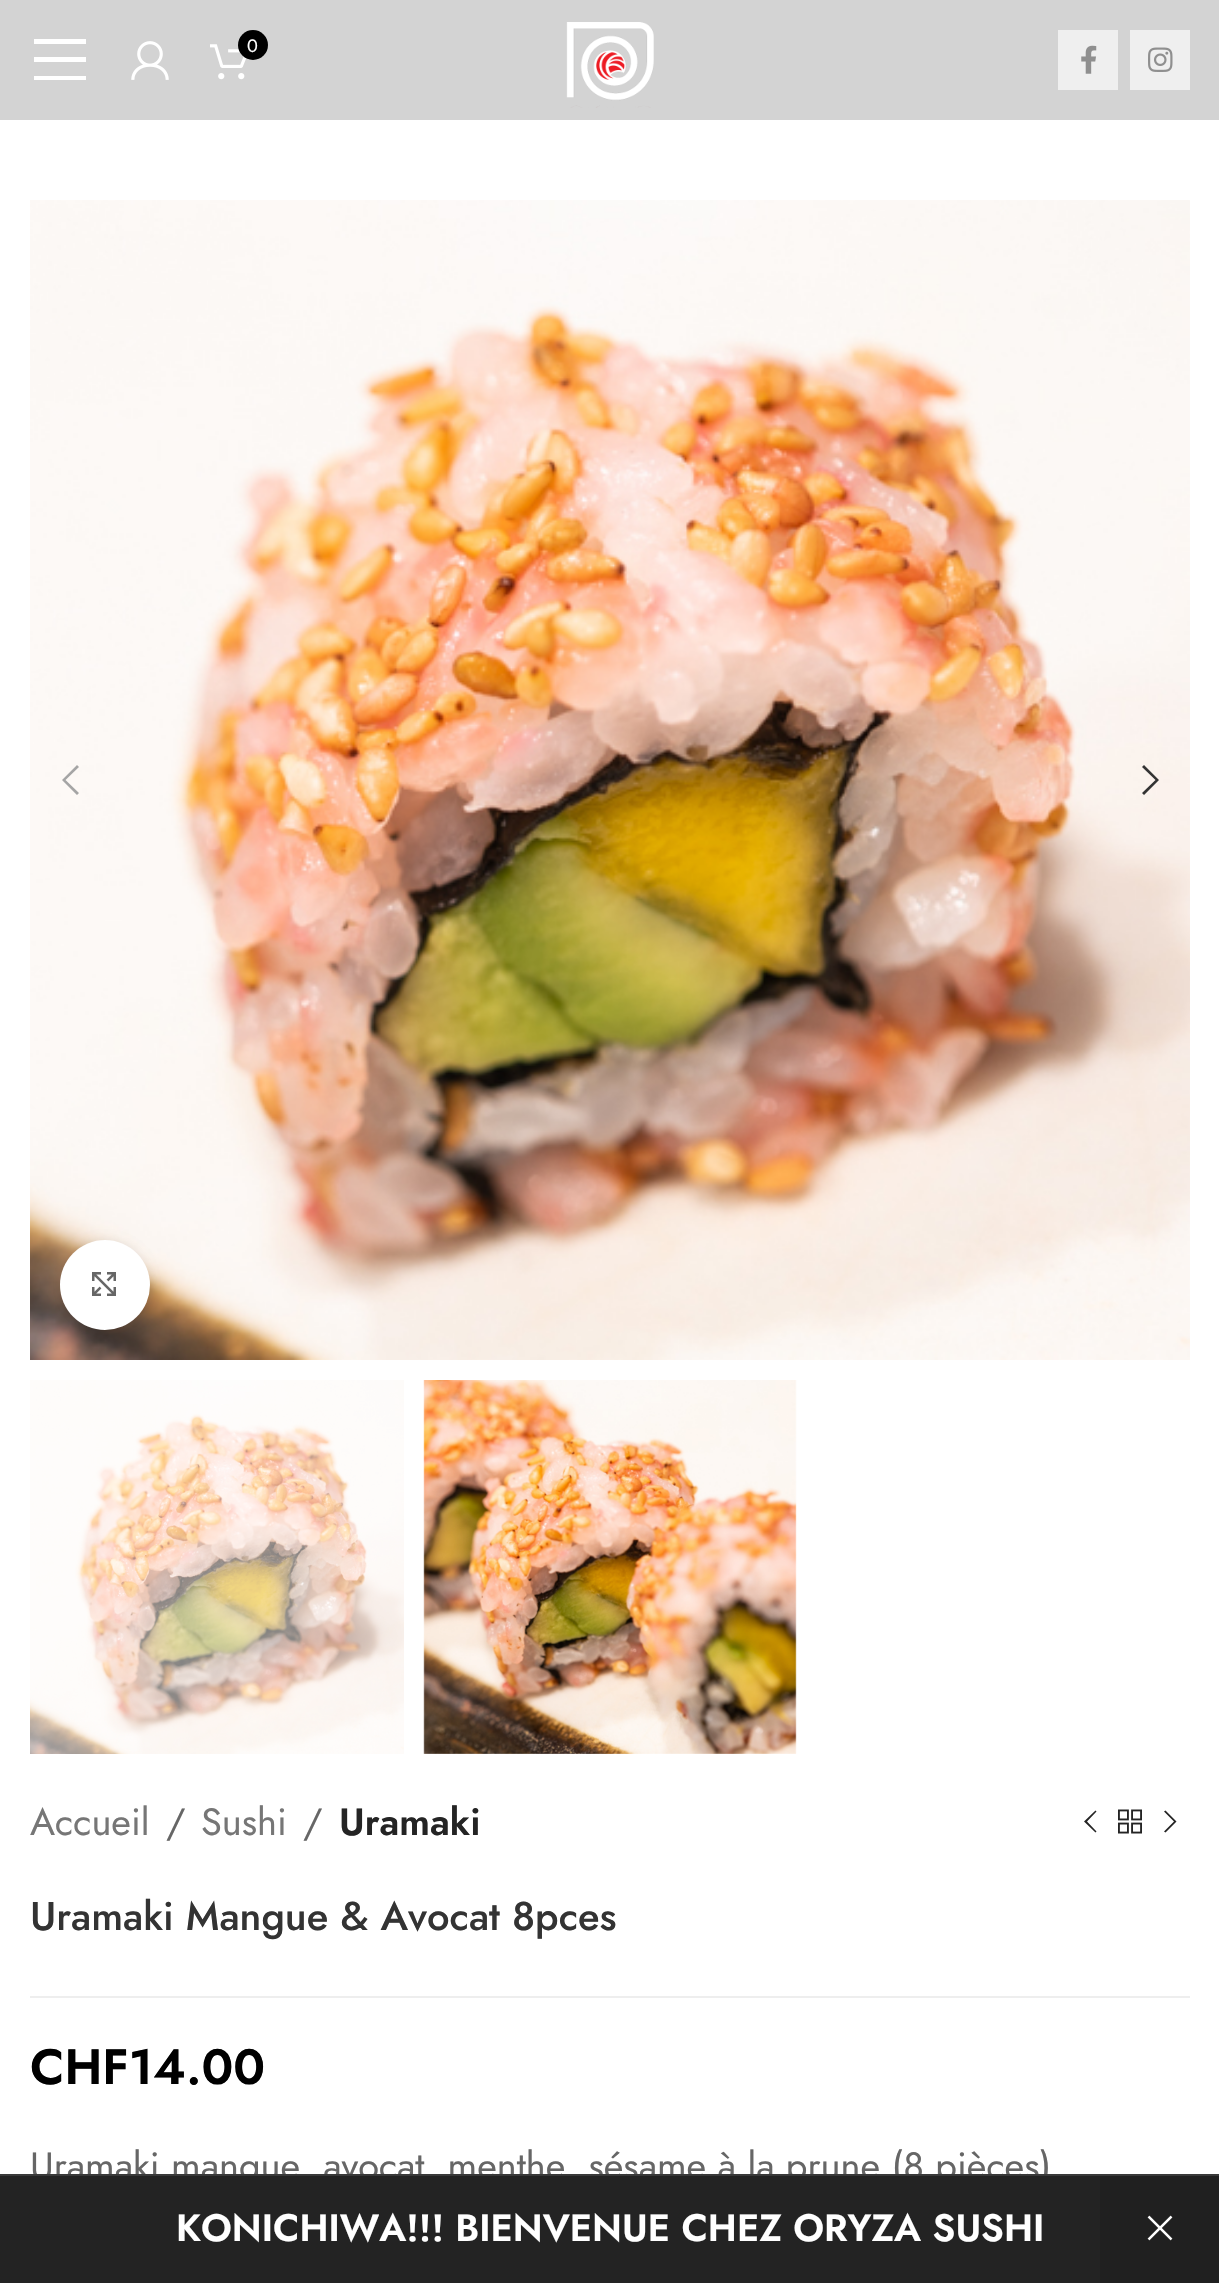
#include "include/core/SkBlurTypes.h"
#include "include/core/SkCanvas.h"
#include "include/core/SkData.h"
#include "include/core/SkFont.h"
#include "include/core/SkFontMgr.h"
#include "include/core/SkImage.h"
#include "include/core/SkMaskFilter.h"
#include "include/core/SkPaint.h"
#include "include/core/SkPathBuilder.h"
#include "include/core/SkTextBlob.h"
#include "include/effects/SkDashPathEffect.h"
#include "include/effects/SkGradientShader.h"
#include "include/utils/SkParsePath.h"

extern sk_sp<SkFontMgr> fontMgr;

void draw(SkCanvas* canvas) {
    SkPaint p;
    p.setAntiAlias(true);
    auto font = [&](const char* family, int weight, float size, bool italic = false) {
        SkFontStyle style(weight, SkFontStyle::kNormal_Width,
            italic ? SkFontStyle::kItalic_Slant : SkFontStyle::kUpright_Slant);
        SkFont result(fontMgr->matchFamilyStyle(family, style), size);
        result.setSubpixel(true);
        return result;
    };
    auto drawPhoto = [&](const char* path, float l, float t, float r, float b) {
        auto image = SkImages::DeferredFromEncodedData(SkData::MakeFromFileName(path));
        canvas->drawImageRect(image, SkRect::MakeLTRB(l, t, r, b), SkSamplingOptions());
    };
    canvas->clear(0xFFFFFFFF);
    p.setColor(0xFFD3D3D3);
    canvas->drawRect(SkRect::MakeLTRB(0, 0, 1219, 120), p);
    p.setColor(0xFFFFFFFF);
    canvas->drawPath(SkPathBuilder().moveTo(34, 44).lineTo(86, 44).lineTo(86, 39).lineTo(34, 39).close().moveTo(34, 62).lineTo(86, 62).lineTo(86, 57).lineTo(34, 57).close().moveTo(34, 80).lineTo(86, 80).lineTo(86, 76).lineTo(34, 76).close().detach(), p);
    drawPhoto("media/1.png", 131, 41, 169, 80);
    drawPhoto("media/2.png", 210, 44, 247, 80);
    p.setColor(0xFF000000);
    canvas->drawCircle(253, 45, 15, p);
    auto font1 = font("Jost", 400, 18);
    p.setColor(0xFFFFFFFF);
    canvas->drawString("0", 247, 52, font1, p);
    drawPhoto("media/3.png", 566, 22, 654, 108);
    p.setColor(0xFFEFEFEF);
    canvas->drawRect(SkRect::MakeLTRB(1058, 30, 1118, 90), p);
    drawPhoto("media/4.png", 1081, 45, 1097, 74);
    canvas->drawRect(SkRect::MakeLTRB(1130, 30, 1190, 90), p);
    drawPhoto("media/5.png", 1148, 47, 1173, 72);
    drawPhoto("media/6.png", 30, 200, 1190, 1360);
    p.setColor(0xFFA5A5A5);
    canvas->drawPath(SkPathBuilder().moveTo(79, 767).lineTo(77, 765).lineTo(62, 780).lineTo(77, 795).lineTo(79, 793).lineTo(65.5f, 780).close().detach(), p);
    p.setColor(0xFF333333);
    canvas->drawPath(SkPathBuilder().moveTo(1142, 767).lineTo(1155.5f, 780).lineTo(1142, 793).lineTo(1144, 795).lineTo(1159, 780).lineTo(1144, 765).close().detach(), p);
    p.setColor(0x14000000);
    p.setMaskFilter(SkMaskFilter::MakeBlur(kNormal_SkBlurStyle, 5));
    canvas->drawRoundRect(SkRect::MakeLTRB(60, 1240, 150, 1330), 45, 45, p);
    p.setMaskFilter(nullptr);
    p.setColor(0xFFFFFFFF);
    canvas->drawCircle(105, 1285, 45, p);
    drawPhoto("media/7.png", 92, 1272, 116, 1296);
    drawPhoto("media/8.png", 30, 1380, 404, 1754);
    drawPhoto("media/9.png", 423, 1380, 797, 1754);
    auto font2 = font("Jost", 400, 38);
    p.setColor(0xFF767676);
    canvas->drawString("Accueil", 30, 1835, font2, p);
    p.setColor(0xFF666666);
    canvas->drawString("/", 166, 1835, font2, p);
    p.setColor(0xFF767676);
    canvas->drawString("Sushi", 201, 1835, font2, p);
    p.setColor(0xFF666666);
    canvas->drawString("/", 303, 1835, font2, p);
    auto font3 = font("Jost", 600, 38);
    p.setColor(0xFF242424);
    canvas->drawString("Uramaki", 339, 1835, font3, p);
    canvas->drawPath(SkPathBuilder().moveTo(1096.5f, 1811.5f).lineTo(1095.5f, 1810.5f).lineTo(1084, 1821.5f).lineTo(1095.5f, 1832.5f).lineTo(1096.5f, 1831.5f).lineTo(1087, 1821.5f).close().detach(), p);
    drawPhoto("media/10.png", 1118, 1809, 1142, 1834);
    canvas->drawPath(SkPathBuilder().moveTo(1164, 1811.5f).lineTo(1174, 1821.5f).lineTo(1164, 1831.5f).lineTo(1165.5f, 1832.5f).lineTo(1176.5f, 1821.5f).lineTo(1165.5f, 1810.5f).close().detach(), p);
    auto font4 = font("Jost", 500, 40);
    p.setColor(0xFF333333);
    canvas->drawString("Uramaki Mangue & Avocat 8pces", 30, 1930, font4, p);
    p.setColor(0xFFEEEEEE);
    canvas->drawRect(SkRect::MakeLTRB(30, 1996, 1190, 1998), p);
    auto font5 = font("Jost", 600, 49.5f);
    p.setColor(0xFF000000);
    canvas->drawString("CHF14.00", 30, 2084, font5, p);
    p.setColor(0xFF666666);
    canvas->drawString("Uramaki mangue, avocat, menthe, sésame à la prune (8 pièces)", 30, 2179, font2, p);
    p.setColor(0xFF232323);
    canvas->drawRect(SkRect::MakeLTRB(0, 2176, 1100, 2283), p);
    p.setColor(0xFF393939);
    canvas->drawRect(SkRect::MakeLTRB(0, 2174, 1219, 2176), p);
    p.setColor(0xFFFFFFFF);
    canvas->drawString("KONICHIWA!!! BIENVENUE CHEZ ORYZA SUSHI", 176, 2241, font3, p);
    p.setColor(0xFF202020);
    canvas->drawRect(SkRect::MakeLTRB(1100, 2176, 1219, 2283), p);
    drawPhoto("media/11.png", 1147, 2215, 1173, 2241);
}
